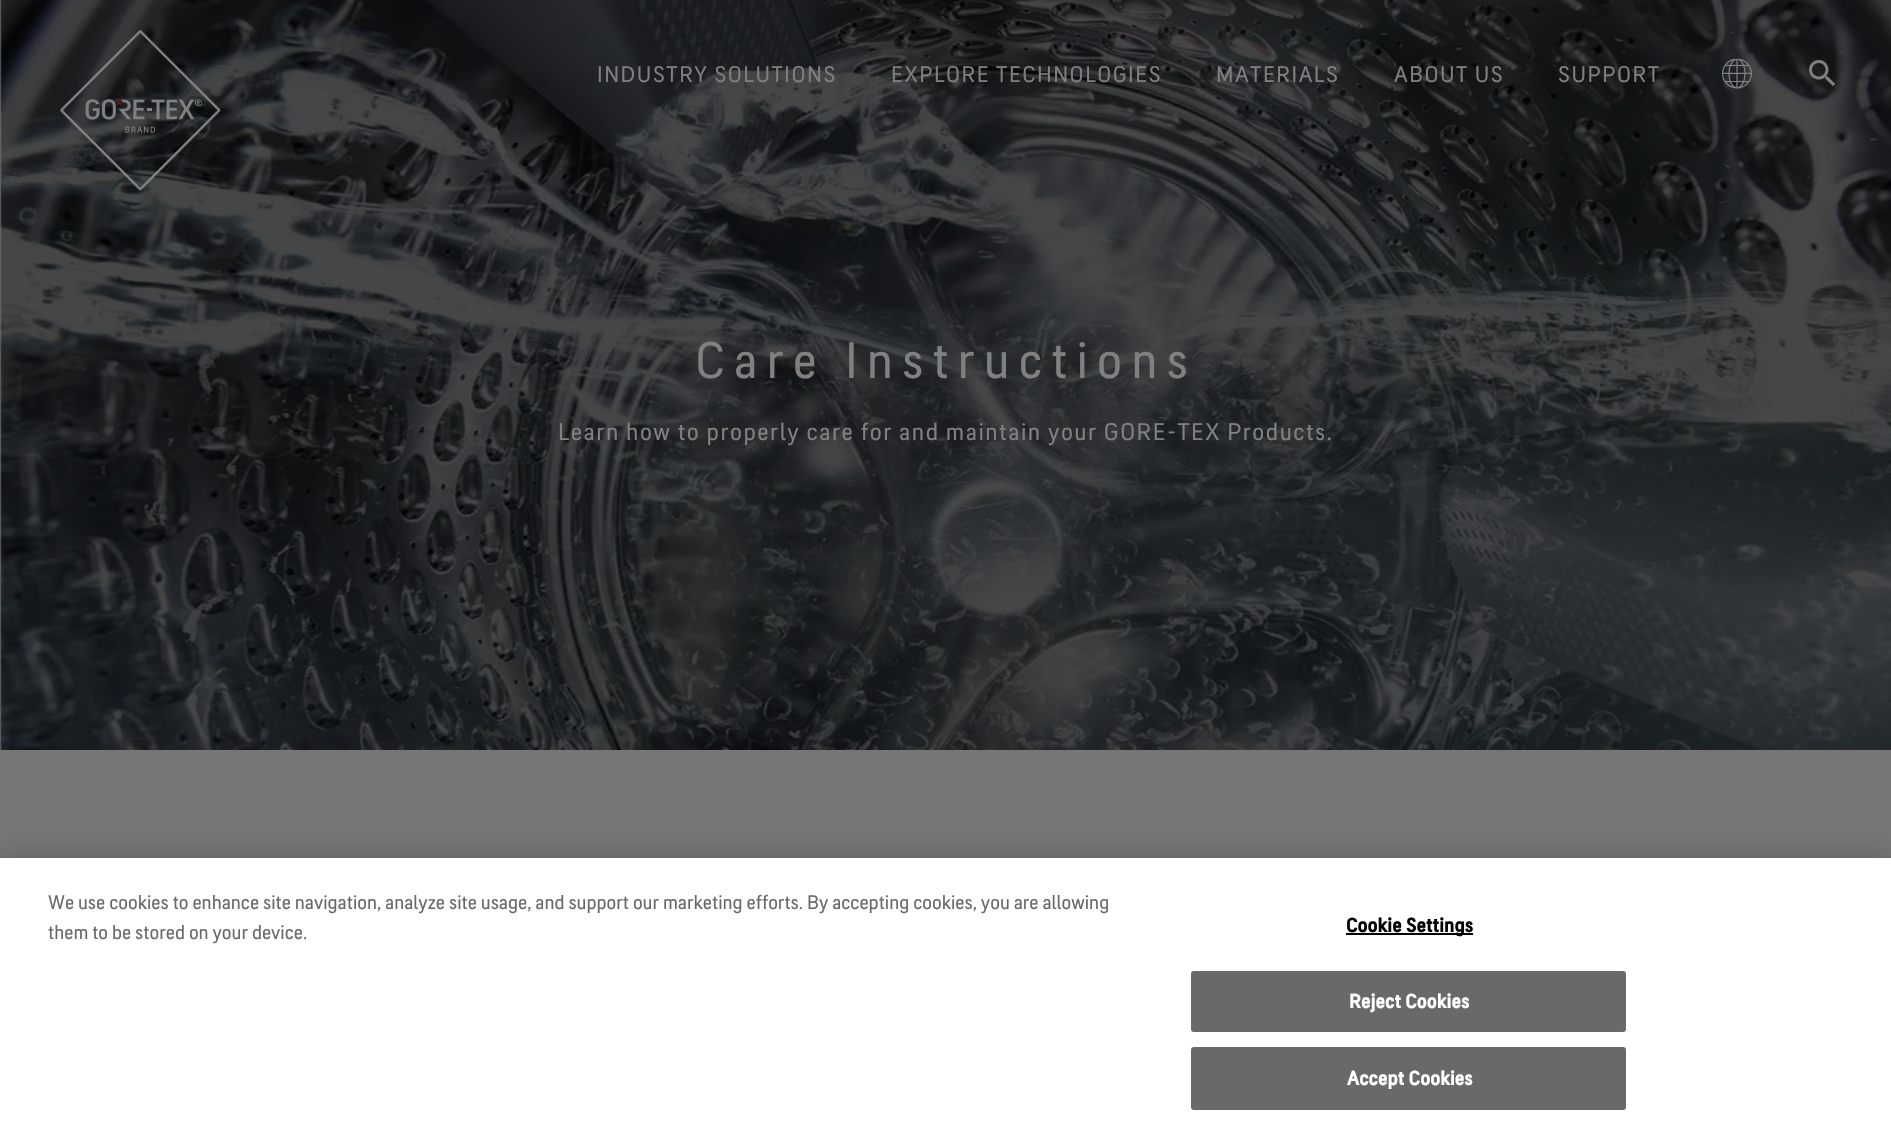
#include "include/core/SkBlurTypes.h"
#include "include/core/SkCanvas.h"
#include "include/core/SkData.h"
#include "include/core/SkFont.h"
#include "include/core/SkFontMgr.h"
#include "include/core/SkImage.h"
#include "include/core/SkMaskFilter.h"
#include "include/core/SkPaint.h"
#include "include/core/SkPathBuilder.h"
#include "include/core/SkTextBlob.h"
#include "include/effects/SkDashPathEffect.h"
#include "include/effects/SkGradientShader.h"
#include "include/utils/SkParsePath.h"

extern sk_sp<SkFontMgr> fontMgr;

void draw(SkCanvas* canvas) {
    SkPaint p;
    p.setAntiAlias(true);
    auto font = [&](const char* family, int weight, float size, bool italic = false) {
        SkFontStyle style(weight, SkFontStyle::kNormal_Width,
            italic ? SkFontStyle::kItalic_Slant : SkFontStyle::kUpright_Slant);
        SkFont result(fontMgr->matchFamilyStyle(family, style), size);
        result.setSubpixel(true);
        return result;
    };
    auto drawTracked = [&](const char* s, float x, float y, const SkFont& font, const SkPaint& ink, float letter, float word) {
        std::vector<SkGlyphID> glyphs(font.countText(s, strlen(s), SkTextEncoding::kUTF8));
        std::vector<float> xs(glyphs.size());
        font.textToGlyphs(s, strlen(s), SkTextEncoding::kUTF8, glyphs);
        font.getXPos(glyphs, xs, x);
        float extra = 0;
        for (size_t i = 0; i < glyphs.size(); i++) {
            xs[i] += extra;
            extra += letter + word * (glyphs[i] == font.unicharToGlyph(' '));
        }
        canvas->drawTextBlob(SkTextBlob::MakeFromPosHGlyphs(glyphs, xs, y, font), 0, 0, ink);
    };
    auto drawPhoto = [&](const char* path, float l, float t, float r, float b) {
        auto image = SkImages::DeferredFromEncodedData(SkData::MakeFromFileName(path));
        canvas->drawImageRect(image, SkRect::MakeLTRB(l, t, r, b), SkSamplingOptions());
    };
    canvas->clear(0xFF767676);
    drawPhoto("media/4.png", 0, 0, 1891, 750);
    drawPhoto("media/1.png", 60, 30, 221, 191);
    auto font1 = font("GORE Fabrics", 400, 22.5f);
    p.setColor(0xFF808080);
    {
        const struct { const char* s; float x, y; } items[] = {
            {"INDUSTRY SOLUTIONS", 597, 82},
            {"EXPLORE TECHNOLOGIES", 891, 82},
            {"MATERIALS", 1216, 82},
            {"ABOUT US", 1394, 82},
            {"SUPPORT", 1558, 82},
        };
        for (auto [s, x, y] : items) {
            drawTracked(s, x, y, font1, p, 1.5f, 0);
        }
    }
    drawPhoto("media/2.png", 1722, 59, 1752, 89);
    drawPhoto("media/3.png", 1809, 60, 1836, 87);
    auto font2 = font("GORE Fabrics", 400, 51);
    drawTracked("Care Instructions", 695, 378, font2, p, 9, 0);
    auto font3 = font("GORE Fabrics", 400, 24);
    drawTracked("Learn how to properly care for and maintain your GORE-TEX Products.", 558, 440, font3, p, 1.5f, 0);
    p.setColor(0x33000000);
    p.setMaskFilter(SkMaskFilter::MakeBlur(kNormal_SkBlurStyle, 13.5f));
    canvas->drawRect(SkRect::MakeLTRB(0, 858, 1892, 1140), p);
    p.setMaskFilter(nullptr);
    p.setColor(0xFFFFFFFF);
    canvas->drawRect(SkRect::MakeLTRB(0, 858, 1891, 1140), p);
    auto font4 = font("GORE Fabrics", 400, 19.5f);
    p.setColor(0xFF696969);
    {
        const struct { const char* s; float x, y; } items[] = {
            {"We use cookies to enhance site navigation, analyze site usage, and support our marketing efforts.", 48, 909},
            {"By accepting cookies, you are allowing", 807, 909},
            {"them to be stored on your device.", 48, 939},
        };
        for (auto [s, x, y] : items) {
            canvas->drawString(s, x, y, font4, p);
        }
    }
    p.setColor(0xFF000000);
    canvas->drawRect(SkRect::MakeLTRB(1346, 933, 1473, 935), p);
    auto font5 = font("GORE Fabrics", 700, 19.5f);
    drawTracked("Cookie Settings", 1346, 932, font5, p, 0.25f, 0);
    p.setColor(0xFF696969);
    canvas->drawRoundRect(SkRect::MakeLTRB(1192, 972, 1625, 1031), 2, 2, p);
    p.setStyle(SkPaint::kStroke_Style);
    p.setStrokeWidth(2);
    canvas->drawRoundRect(SkRect::MakeLTRB(1192, 972, 1625, 1031), 2, 2, p);
    p.setStyle(SkPaint::kFill_Style);
    p.setColor(0xFFFFFFFF);
    drawTracked("Reject Cookies", 1349, 1008, font5, p, 0.25f, 0);
    p.setColor(0xFF696969);
    canvas->drawRoundRect(SkRect::MakeLTRB(1192, 1048, 1625, 1109), 2, 2, p);
    p.setStyle(SkPaint::kStroke_Style);
    canvas->drawRoundRect(SkRect::MakeLTRB(1192, 1048, 1625, 1109), 2, 2, p);
    p.setStyle(SkPaint::kFill_Style);
    p.setColor(0xFFFFFFFF);
    drawTracked("Accept Cookies", 1347, 1085, font5, p, 0.25f, 0);
}
